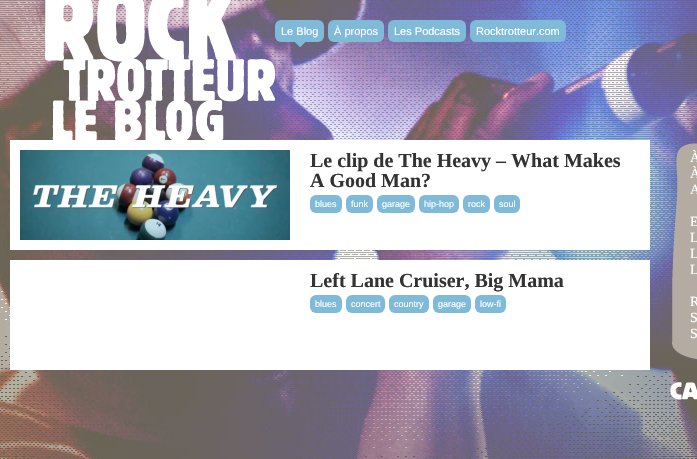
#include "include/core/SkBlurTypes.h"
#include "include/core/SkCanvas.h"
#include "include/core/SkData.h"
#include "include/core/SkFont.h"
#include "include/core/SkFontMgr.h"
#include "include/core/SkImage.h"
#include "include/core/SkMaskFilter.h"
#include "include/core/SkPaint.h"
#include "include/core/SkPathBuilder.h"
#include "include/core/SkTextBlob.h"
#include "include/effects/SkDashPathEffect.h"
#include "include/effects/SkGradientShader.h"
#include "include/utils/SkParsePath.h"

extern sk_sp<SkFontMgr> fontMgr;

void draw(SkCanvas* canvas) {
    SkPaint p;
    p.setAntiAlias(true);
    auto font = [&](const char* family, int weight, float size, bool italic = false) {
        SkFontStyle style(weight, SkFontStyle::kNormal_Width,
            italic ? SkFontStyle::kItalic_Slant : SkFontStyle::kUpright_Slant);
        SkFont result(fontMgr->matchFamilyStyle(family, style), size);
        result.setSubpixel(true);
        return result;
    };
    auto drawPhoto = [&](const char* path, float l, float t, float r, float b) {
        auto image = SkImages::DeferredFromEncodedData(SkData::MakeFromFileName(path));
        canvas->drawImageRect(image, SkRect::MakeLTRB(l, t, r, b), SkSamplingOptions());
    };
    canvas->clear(0xFFFFFFFF);
    drawPhoto("media/1.png", 0, 0, 697, 459);
    drawPhoto("media/2.png", 45, 0, 275, 140);
    drawPhoto("media/3.png", 295, 42, 306, 47);
    p.setColor(0xFF7FBAD8);
    canvas->drawRoundRect(SkRect::MakeLTRB(275, 20, 324, 42), 6, 6, p);
    auto font1 = font("Liberation Sans", 400, 11);
    p.setColor(0xFFFFFFFF);
    canvas->drawString("Le Blog", 281, 35, font1, p);
    p.setColor(0xFF7FBAD8);
    canvas->drawRoundRect(SkRect::MakeLTRB(328, 20, 384, 42), 6, 6, p);
    p.setColor(0xFFFFFFFF);
    canvas->drawString("À propos", 334, 35, font1, p);
    p.setColor(0xFF7FBAD8);
    canvas->drawRoundRect(SkRect::MakeLTRB(388, 20, 466, 42), 6, 6, p);
    p.setColor(0xFFFFFFFF);
    canvas->drawString("Les Podcasts", 394, 35, font1, p);
    p.setColor(0xFF7FBAD8);
    canvas->drawRoundRect(SkRect::MakeLTRB(470, 20, 566, 42), 6, 6, p);
    p.setColor(0xFFFFFFFF);
    canvas->drawString("Rocktrotteur.com", 476, 35, font1, p);
    canvas->drawRect(SkRect::MakeLTRB(10, 140, 650, 250), p);
    drawPhoto("media/4.png", 20, 150, 290, 240);
    auto font2 = font("Liberation Serif", 700, 20);
    p.setColor(0xFF333333);
    canvas->drawString("Le clip de The Heavy – What Makes", 310, 167, font2, p);
    canvas->drawString("A Good Man?", 310, 187, font2, p);
    p.setColor(0xFF7FBAD8);
    canvas->drawRoundRect(SkRect::MakeLTRB(310, 195, 342, 213), 6, 6, p);
    auto font3 = font("Liberation Sans", 400, 9);
    p.setColor(0xFFFFFFFF);
    canvas->drawString("blues", 315, 207, font3, p);
    p.setColor(0xFF7FBAD8);
    canvas->drawRoundRect(SkRect::MakeLTRB(346, 195, 373, 213), 6, 6, p);
    p.setColor(0xFFFFFFFF);
    canvas->drawString("funk", 351, 207, font3, p);
    p.setColor(0xFF7FBAD8);
    canvas->drawRoundRect(SkRect::MakeLTRB(377, 195, 415, 213), 6, 6, p);
    p.setColor(0xFFFFFFFF);
    canvas->drawString("garage", 382, 207, font3, p);
    p.setColor(0xFF7FBAD8);
    canvas->drawRoundRect(SkRect::MakeLTRB(419, 195, 459, 213), 6, 6, p);
    p.setColor(0xFFFFFFFF);
    canvas->drawString("hip-hop", 424, 207, font3, p);
    p.setColor(0xFF7FBAD8);
    canvas->drawRoundRect(SkRect::MakeLTRB(463, 195, 490, 213), 6, 6, p);
    p.setColor(0xFFFFFFFF);
    canvas->drawString("rock", 468, 207, font3, p);
    p.setColor(0xFF7FBAD8);
    canvas->drawRoundRect(SkRect::MakeLTRB(494, 195, 520, 213), 6, 6, p);
    p.setColor(0xFFFFFFFF);
    canvas->drawString("soul", 499, 207, font3, p);
    canvas->drawRect(SkRect::MakeLTRB(10, 260, 650, 370), p);
    p.setColor(0xFF333333);
    canvas->drawString("Left Lane Cruiser, Big Mama", 310, 287, font2, p);
    p.setColor(0xFF7FBAD8);
    canvas->drawRoundRect(SkRect::MakeLTRB(310, 295, 342, 313), 6, 6, p);
    p.setColor(0xFFFFFFFF);
    canvas->drawString("blues", 315, 307, font3, p);
    p.setColor(0xFF7FBAD8);
    canvas->drawRoundRect(SkRect::MakeLTRB(346, 295, 385, 313), 6, 6, p);
    p.setColor(0xFFFFFFFF);
    canvas->drawString("concert", 351, 307, font3, p);
    p.setColor(0xFF7FBAD8);
    canvas->drawRoundRect(SkRect::MakeLTRB(389, 295, 429, 313), 6, 6, p);
    p.setColor(0xFFFFFFFF);
    canvas->drawString("country", 394, 307, font3, p);
    p.setColor(0xFF7FBAD8);
    canvas->drawRoundRect(SkRect::MakeLTRB(433, 295, 471, 313), 6, 6, p);
    p.setColor(0xFFFFFFFF);
    canvas->drawString("garage", 438, 307, font3, p);
    p.setColor(0xFF7FBAD8);
    canvas->drawRoundRect(SkRect::MakeLTRB(475, 295, 506, 313), 6, 6, p);
    p.setColor(0xFFFFFFFF);
    canvas->drawString("low-fi", 480, 307, font3, p);
    drawPhoto("media/5.png", 672, 143, 697, 342);
    auto font4 = font("Liberation Serif", 400, 14);
    {
        const struct { const char* s; float x, y; } items[] = {
            {"À", 690, 162},
            {"À", 690, 178},
            {"A", 690, 194},
            {"E", 690, 226},
            {"L", 690, 242},
            {"L", 690, 258},
            {"L", 690, 274},
            {"R", 690, 306},
            {"S", 690, 322},
            {"S", 690, 338},
        };
        for (auto [s, x, y] : items) {
            canvas->drawString(s, x, y, font4, p);
        }
    }
    drawPhoto("media/6.png", 671, 342, 697, 360);
    drawPhoto("media/7.png", 670, 382, 697, 400);
}
